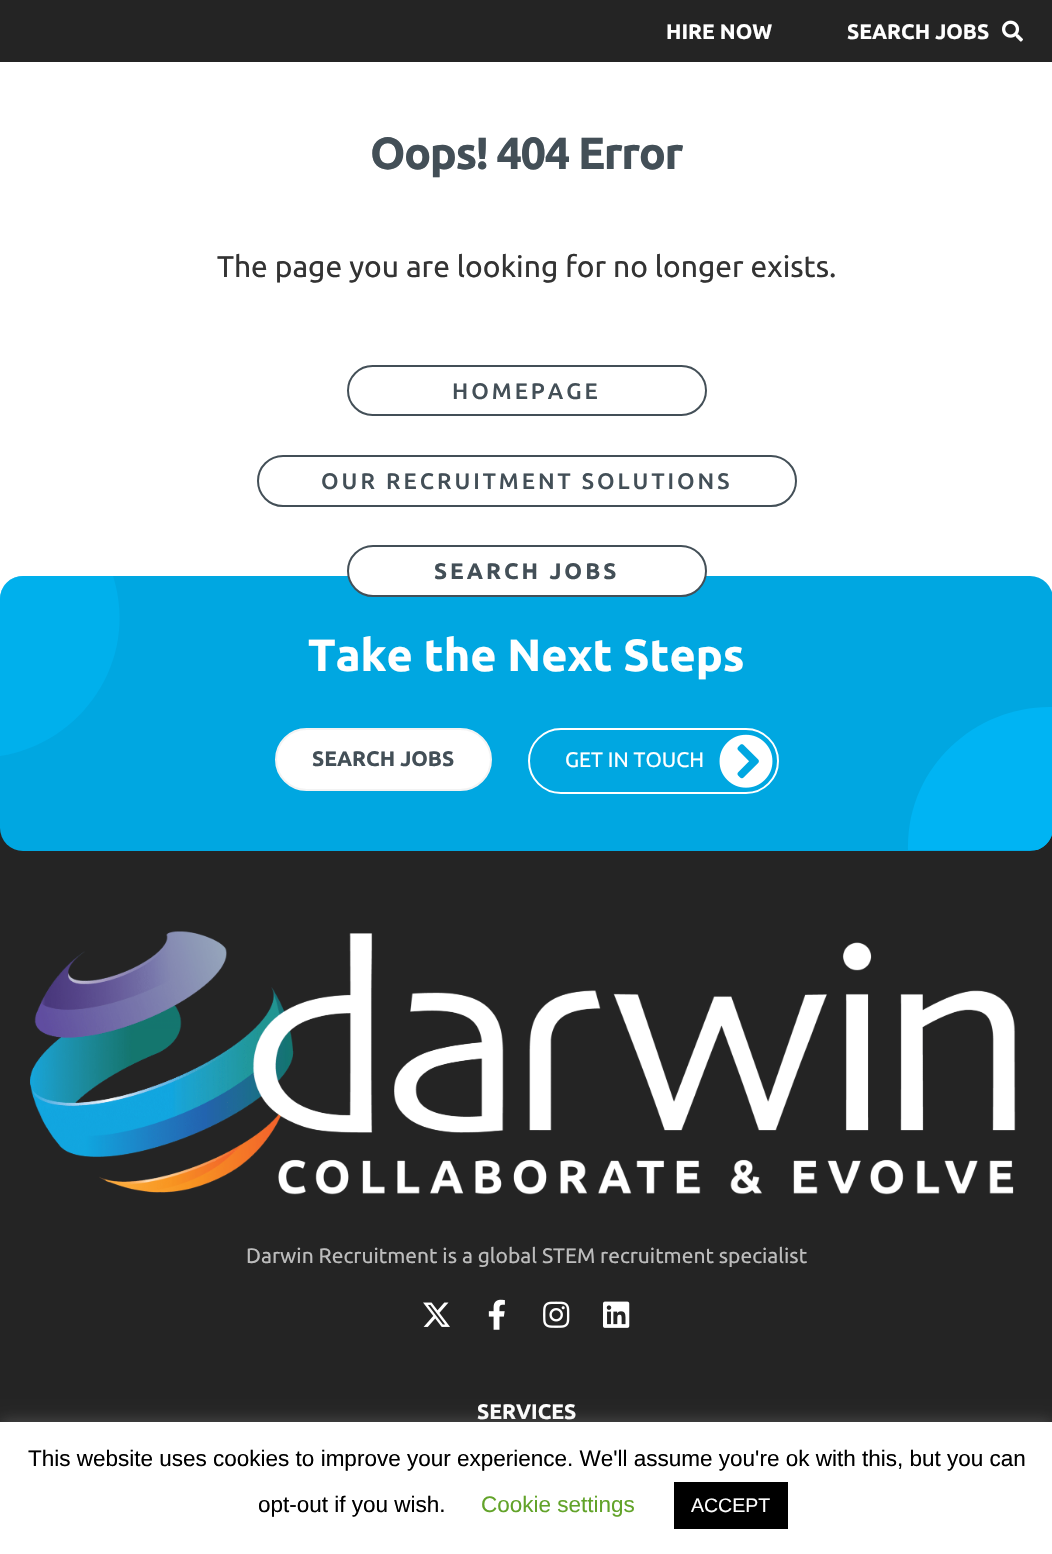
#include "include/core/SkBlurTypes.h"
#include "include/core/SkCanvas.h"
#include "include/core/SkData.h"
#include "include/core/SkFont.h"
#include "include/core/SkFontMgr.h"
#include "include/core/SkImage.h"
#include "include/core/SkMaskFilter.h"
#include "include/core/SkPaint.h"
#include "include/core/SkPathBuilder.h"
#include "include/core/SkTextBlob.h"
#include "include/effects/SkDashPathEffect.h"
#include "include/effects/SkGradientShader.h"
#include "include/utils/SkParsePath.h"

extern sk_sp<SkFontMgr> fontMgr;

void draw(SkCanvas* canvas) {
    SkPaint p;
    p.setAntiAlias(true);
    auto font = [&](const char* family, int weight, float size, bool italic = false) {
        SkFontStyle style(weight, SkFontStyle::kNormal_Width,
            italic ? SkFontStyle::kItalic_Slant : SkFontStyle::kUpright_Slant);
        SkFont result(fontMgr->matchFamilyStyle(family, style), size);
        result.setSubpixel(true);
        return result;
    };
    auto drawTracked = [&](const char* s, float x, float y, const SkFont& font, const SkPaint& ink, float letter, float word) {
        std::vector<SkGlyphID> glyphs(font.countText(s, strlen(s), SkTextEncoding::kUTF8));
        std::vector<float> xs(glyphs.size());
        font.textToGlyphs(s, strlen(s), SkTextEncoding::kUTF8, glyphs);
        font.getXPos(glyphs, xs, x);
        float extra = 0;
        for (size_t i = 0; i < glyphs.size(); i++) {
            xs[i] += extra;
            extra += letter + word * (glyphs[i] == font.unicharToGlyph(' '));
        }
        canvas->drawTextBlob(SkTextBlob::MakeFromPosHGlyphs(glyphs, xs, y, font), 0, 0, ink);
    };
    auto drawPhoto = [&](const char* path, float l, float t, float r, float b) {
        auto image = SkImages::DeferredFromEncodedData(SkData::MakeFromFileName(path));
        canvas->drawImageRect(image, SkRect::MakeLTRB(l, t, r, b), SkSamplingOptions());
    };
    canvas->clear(0xFFFFFFFF);
    p.setColor(0xFF242424);
    canvas->drawRect(SkRect::MakeLTRB(0, 0, 1052, 62), p);
    auto font1 = font("Ubuntu", 700, 21);
    p.setColor(0xFFFFFFFF);
    canvas->drawString("HIRE NOW", 666, 39, font1, p);
    canvas->drawString("SEARCH JOBS", 847, 39, font1, p);
    drawPhoto("media/1.png", 1002, 20, 1023, 42);
    auto font2 = font("Ubuntu", 700, 45);
    p.setColor(0xFF434F57);
    drawTracked("Oops! 404 Error", 370, 169, font2, p, -1.5f, 0);
    auto font3 = font("Ubuntu", 400, 30);
    p.setColor(0xFF333333);
    canvas->drawString("The page you are looking for no longer exists.", 217, 277, font3, p);
    p.setStyle(SkPaint::kStroke_Style);
    p.setStrokeWidth(2);
    p.setColor(0xFF434F57);
    canvas->drawRoundRect(SkRect::MakeLTRB(348, 366, 706, 415), 24.5f, 24.5f, p);
    auto font4 = font("Ubuntu", 500, 22.5f);
    p.setStyle(SkPaint::kFill_Style);
    drawTracked("HOMEPAGE", 452, 399, font4, p, 3, 0);
    p.setStyle(SkPaint::kStroke_Style);
    canvas->drawRoundRect(SkRect::MakeLTRB(258, 456, 796, 506), 25, 25, p);
    p.setStyle(SkPaint::kFill_Style);
    drawTracked("OUR RECRUITMENT SOLUTIONS", 321, 489, font4, p, 3, 0);
    p.setColor(0xFF242424);
    canvas->drawRect(SkRect::MakeLTRB(0, 828, 1052, 1422), p);
    p.setColor(0xFF00A7E1);
    canvas->drawRoundRect(SkRect::MakeLTRB(0, 576, 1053, 851), 23, 23, p);
    p.setColor(0xFFFFFFFF);
    canvas->drawRoundRect(SkRect::MakeLTRB(348, 546, 706, 596), 25, 25, p);
    p.setStyle(SkPaint::kStroke_Style);
    p.setColor(0xFF434F57);
    canvas->drawRoundRect(SkRect::MakeLTRB(348, 546, 706, 596), 25, 25, p);
    auto font5 = font("Ubuntu", 700, 22.5f);
    p.setStyle(SkPaint::kFill_Style);
    drawTracked("SEARCH JOBS", 434, 579, font5, p, 3, 0);
    p.setColor(0xA300B4F3);
    canvas->drawPath(SkPathBuilder().moveTo(23, 576).cubicTo(10, 576, 0, 586, 0, 599).lineTo(0, 756).cubicTo(80, 744, 140, 662, 113, 576).close().detach(), p);
    p.setColor(0xFF00B4F3);
    canvas->drawPath(SkPathBuilder().moveTo(908, 850).cubicTo(906, 766, 977, 705, 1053, 707).lineTo(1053, 828).cubicTo(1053, 838, 1046, 847, 1037, 850).close().detach(), p);
    p.setColor(0xFFFFFFFF);
    canvas->drawString("Take the Next Steps", 308, 671, font2, p);
    canvas->drawRoundRect(SkRect::MakeLTRB(276, 729, 491, 790), 30.5f, 30.5f, p);
    p.setStyle(SkPaint::kStroke_Style);
    p.setColor(0xFFF3F3F3);
    canvas->drawRoundRect(SkRect::MakeLTRB(276, 729, 491, 790), 30.5f, 30.5f, p);
    p.setStyle(SkPaint::kFill_Style);
    p.setColor(0xFF434F57);
    canvas->drawString("SEARCH JOBS", 312, 766, font1, p);
    p.setStyle(SkPaint::kStroke_Style);
    p.setColor(0xFFFFFFFF);
    canvas->drawRoundRect(SkRect::MakeLTRB(529, 729, 778, 793), 32, 32, p);
    auto font6 = font("Ubuntu", 400, 21);
    p.setStyle(SkPaint::kFill_Style);
    canvas->drawString("GET IN TOUCH", 565, 767, font6, p);
    drawPhoto("media/2.png", 719, 734, 773, 788);
    drawPhoto("media/3.png", 30, 931, 1016, 1195);
    p.setColor(0xFFBCBCBC);
    canvas->drawString("Darwin Recruitment is a global STEM recruitment specialist", 246, 1263, font6, p);
    drawPhoto("media/4.png", 423, 1302, 450, 1327);
    drawPhoto("media/5.png", 488, 1299, 505, 1330);
    drawPhoto("media/6.png", 543, 1301, 570, 1328);
    drawPhoto("media/7.png", 603, 1301, 630, 1328);
    p.setColor(0xFFFFFFFF);
    canvas->drawString("SERVICES", 477, 1419, font1, p);
    p.setColor(0x4DACABAB);
    p.setMaskFilter(SkMaskFilter::MakeBlur(kNormal_SkBlurStyle, 7.5f));
    canvas->drawRect(SkRect::MakeLTRB(0, 1421, 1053, 1553), p);
    p.setMaskFilter(nullptr);
    p.setColor(0xFFFFFFFF);
    canvas->drawRect(SkRect::MakeLTRB(0, 1422, 1052, 1554), p);
    auto font7 = font("Liberation Sans", 400, 22.5f);
    p.setColor(0xFF000000);
    canvas->drawString("This website uses cookies to improve your experience. We'll assume you're ok with this, but you can", 28, 1466, font7, p);
    canvas->drawString("opt-out if you wish.", 258, 1512, font7, p);
    p.setColor(0xFF62A329);
    canvas->drawString("Cookie settings", 481, 1512, font7, p);
    p.setColor(0xFF000000);
    canvas->drawRect(SkRect::MakeLTRB(674, 1482, 788, 1529), p);
    auto font8 = font("Liberation Sans", 400, 19.5f);
    p.setColor(0xFFFFFFFF);
    canvas->drawString("ACCEPT", 691, 1512, font8, p);
}
